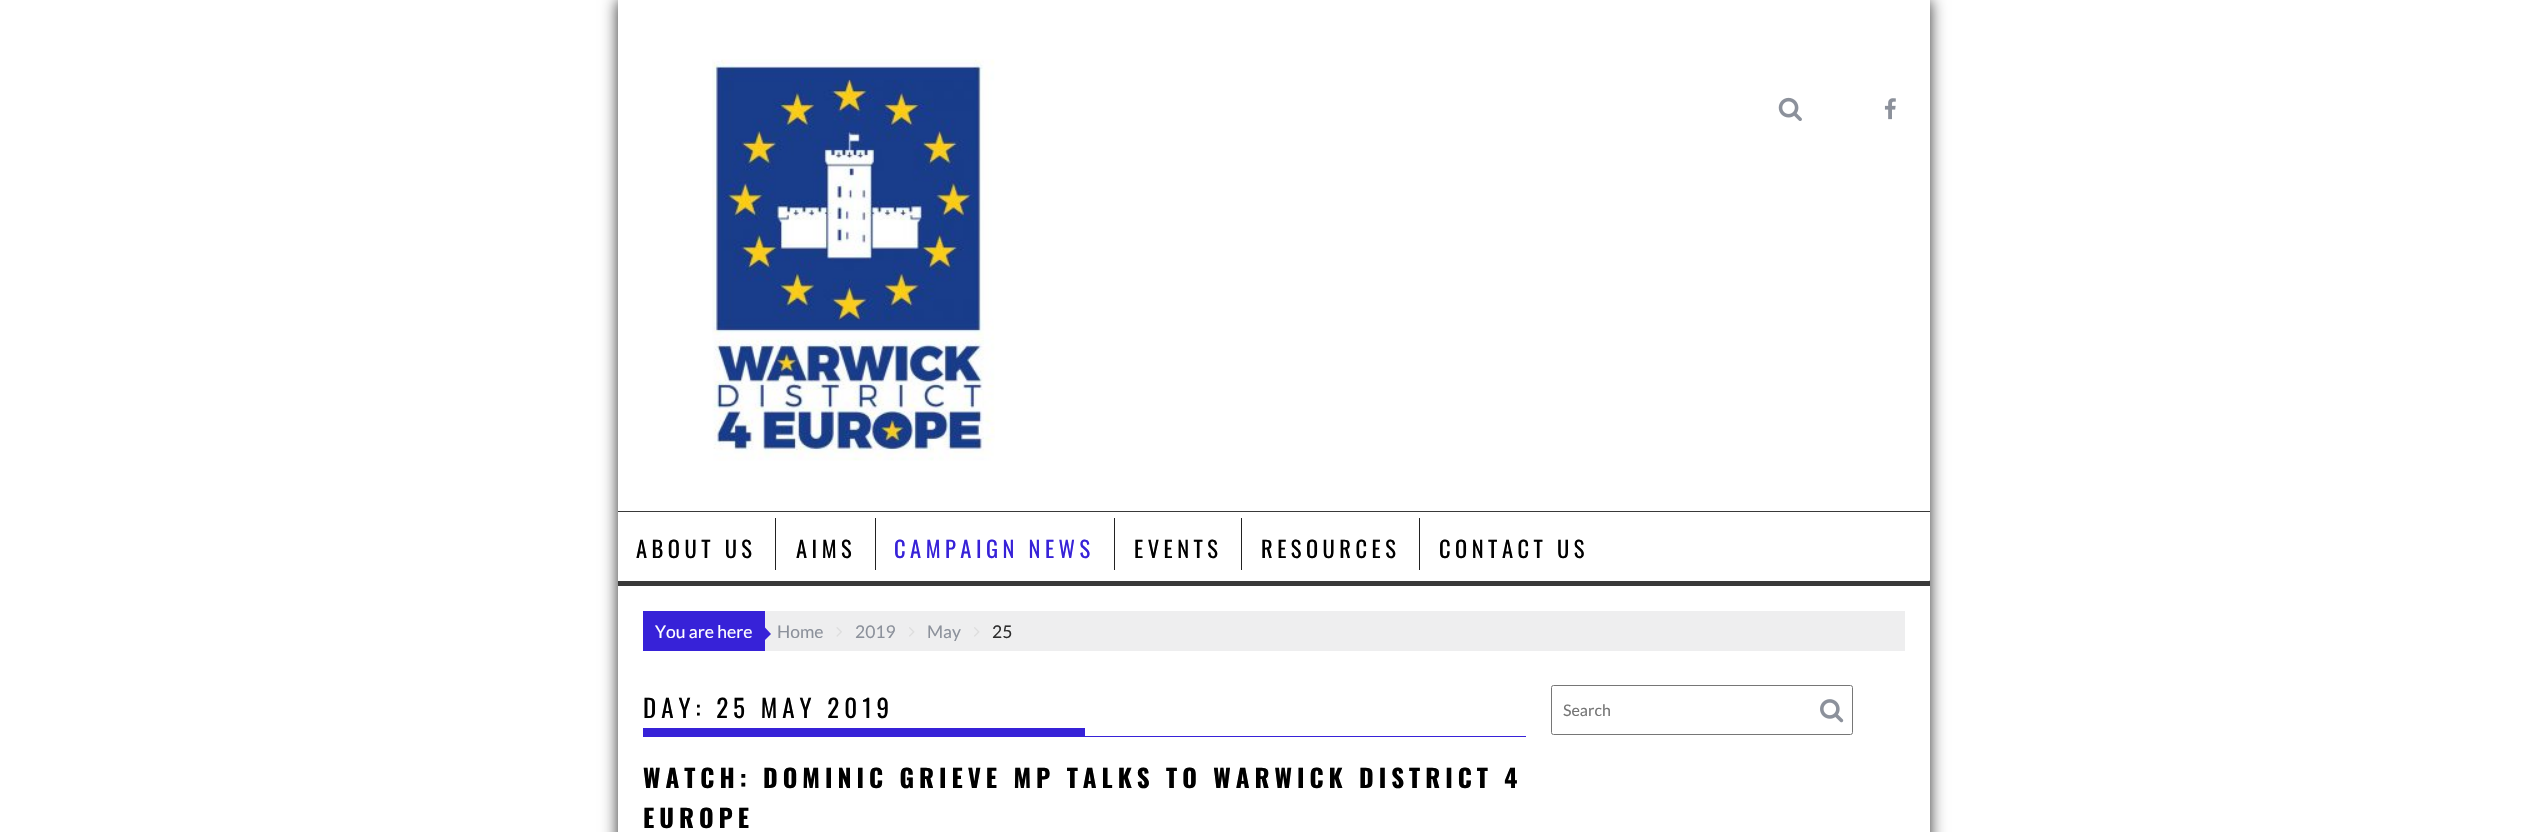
#include "include/core/SkBlurTypes.h"
#include "include/core/SkCanvas.h"
#include "include/core/SkData.h"
#include "include/core/SkFont.h"
#include "include/core/SkFontMgr.h"
#include "include/core/SkImage.h"
#include "include/core/SkMaskFilter.h"
#include "include/core/SkPaint.h"
#include "include/core/SkPathBuilder.h"
#include "include/core/SkTextBlob.h"
#include "include/effects/SkDashPathEffect.h"
#include "include/effects/SkGradientShader.h"
#include "include/utils/SkParsePath.h"

extern sk_sp<SkFontMgr> fontMgr;

void draw(SkCanvas* canvas) {
    SkPaint p;
    p.setAntiAlias(true);
    auto font = [&](const char* family, int weight, float size, bool italic = false) {
        SkFontStyle style(weight, SkFontStyle::kNormal_Width,
            italic ? SkFontStyle::kItalic_Slant : SkFontStyle::kUpright_Slant);
        SkFont result(fontMgr->matchFamilyStyle(family, style), size);
        result.setSubpixel(true);
        return result;
    };
    auto drawTracked = [&](const char* s, float x, float y, const SkFont& font, const SkPaint& ink, float letter, float word) {
        std::vector<SkGlyphID> glyphs(font.countText(s, strlen(s), SkTextEncoding::kUTF8));
        std::vector<float> xs(glyphs.size());
        font.textToGlyphs(s, strlen(s), SkTextEncoding::kUTF8, glyphs);
        font.getXPos(glyphs, xs, x);
        float extra = 0;
        for (size_t i = 0; i < glyphs.size(); i++) {
            xs[i] += extra;
            extra += letter + word * (glyphs[i] == font.unicharToGlyph(' '));
        }
        canvas->drawTextBlob(SkTextBlob::MakeFromPosHGlyphs(glyphs, xs, y, font), 0, 0, ink);
    };
    auto drawPhoto = [&](const char* path, float l, float t, float r, float b) {
        auto image = SkImages::DeferredFromEncodedData(SkData::MakeFromFileName(path));
        canvas->drawImageRect(image, SkRect::MakeLTRB(l, t, r, b), SkSamplingOptions());
    };
    canvas->clear(0xFFFFFFFF);
    canvas->save();
    canvas->clipPath(SkPathBuilder(SkPathFillType::kEvenOdd).moveTo(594, 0).lineTo(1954, 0).lineTo(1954, 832).lineTo(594, 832).close().moveTo(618, 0).lineTo(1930, 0).lineTo(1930, 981).lineTo(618, 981).close().detach(), true);
    p.setColor(0xFF2D2D2D);
    p.setMaskFilter(SkMaskFilter::MakeBlur(kNormal_SkBlurStyle, 7.5f));
    canvas->drawRect(SkRect::MakeLTRB(618, 0, 1930, 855), p);
    p.setMaskFilter(nullptr);
    canvas->restore();
    drawPhoto("media/1.png", 712, 59, 995, 461);
    drawPhoto("media/2.png", 1778, 97, 1802, 121);
    drawPhoto("media/3.png", 1884, 98, 1896, 120);
    canvas->save();
    canvas->clipRect(SkRect::MakeLTRB(618, 513, 1930, 586));
    p.setColor(0xFF393939);
    canvas->drawPath(SkPathBuilder(SkPathFillType::kEvenOdd).moveTo(494, 389).lineTo(2054, 389).lineTo(2054, 710).lineTo(494, 710).close().moveTo(616, 505).lineTo(1929, 505).cubicTo(1929, 505, 1930, 506, 1930, 506).lineTo(1930, 580).cubicTo(1930, 581, 1929, 581, 1929, 581).lineTo(616, 581).cubicTo(616, 581, 615, 581, 615, 580).lineTo(615, 506).cubicTo(615, 506, 616, 505, 616, 505).close().detach(), p);
    canvas->restore();
    canvas->drawRect(SkRect::MakeLTRB(618, 511, 1930, 512), p);
    auto font1 = font("Oswald", 400, 22.5f);
    p.setColor(0xFF000000);
    drawTracked("ABOUT US", 636, 558, font1, p, 4.5f, 0);
    p.setColor(0xFF222222);
    canvas->drawRect(SkRect::MakeLTRB(775, 518, 776, 570), p);
    p.setColor(0xFF000000);
    drawTracked("AIMS", 796, 558, font1, p, 4.5f, 0);
    p.setColor(0xFF222222);
    canvas->drawRect(SkRect::MakeLTRB(875, 518, 876, 570), p);
    p.setColor(0xFF3722D8);
    drawTracked("CAMPAIGN NEWS", 894, 558, font1, p, 4.5f, 0);
    p.setColor(0xFF222222);
    canvas->drawRect(SkRect::MakeLTRB(1114, 518, 1115, 570), p);
    p.setColor(0xFF000000);
    drawTracked("EVENTS", 1134, 558, font1, p, 4.5f, 0);
    p.setColor(0xFF222222);
    canvas->drawRect(SkRect::MakeLTRB(1241, 518, 1242, 570), p);
    p.setColor(0xFF000000);
    drawTracked("RESOURCES", 1261, 558, font1, p, 4.5f, 0);
    p.setColor(0xFF222222);
    canvas->drawRect(SkRect::MakeLTRB(1419, 518, 1420, 570), p);
    p.setColor(0xFF000000);
    drawTracked("CONTACT US", 1439, 558, font1, p, 4.5f, 0);
    p.setColor(0xFF3722D8);
    canvas->drawRect(SkRect::MakeLTRB(643, 611, 765, 651), p);
    auto font2 = font("Lato", 400, 17.5f);
    p.setColor(0xFFFFFFFF);
    canvas->drawString("You are here", 655, 638, font2, p);
    p.setColor(0xFFEEEEEF);
    canvas->drawRect(SkRect::MakeLTRB(765, 611, 1905, 651), p);
    p.setColor(0xFF3722D8);
    canvas->drawPath(SkPathBuilder().moveTo(765, 640).lineTo(765, 627.5f).lineTo(771, 634).close().detach(), p);
    p.setColor(0xFF8C919B);
    canvas->drawString("Home", 777, 638, font2, p);
    drawPhoto("media/4.png", 836, 627, 842, 637);
    canvas->drawString("2019", 855, 638, font2, p);
    drawPhoto("media/5.png", 909, 627, 915, 637);
    canvas->drawString("May", 927, 638, font2, p);
    drawPhoto("media/5.png", 974, 627, 980, 637);
    p.setColor(0xFF2D2D2D);
    canvas->drawString("25", 992, 638, font2, p);
    p.setColor(0xFF3722D8);
    canvas->drawRect(SkRect::MakeLTRB(643, 736, 1526, 737), p);
    auto font3 = font("Oswald", 400, 25);
    p.setColor(0xFF000000);
    drawTracked("DAY: 25 MAY 2019", 643, 718, font3, p, 5, 0);
    p.setColor(0xFF3722D8);
    canvas->drawRect(SkRect::MakeLTRB(643, 728, 1085, 736), p);
    auto font4 = font("Oswald", 700, 25);
    p.setColor(0xFF000000);
    drawTracked("WATCH: DOMINIC GRIEVE MP TALKS TO WARWICK DISTRICT 4", 643, 788, font4, p, 5, 0);
    drawTracked("EUROPE", 643, 828, font4, p, 5, 0);
    p.setStyle(SkPaint::kStroke_Style);
    p.setStrokeWidth(1);
    p.setColor(0xFF767676);
    canvas->drawRoundRect(SkRect::MakeLTRB(1551.5f, 685.5f, 1852.5f, 734.5f), 2, 2, p);
    auto font5 = font("Lato", 400, 16);
    p.setStyle(SkPaint::kFill_Style);
    p.setColor(0xFF757575);
    canvas->drawString("Search", 1563, 716, font5, p);
    drawPhoto("media/6.png", 1820, 699, 1844, 723);
}
